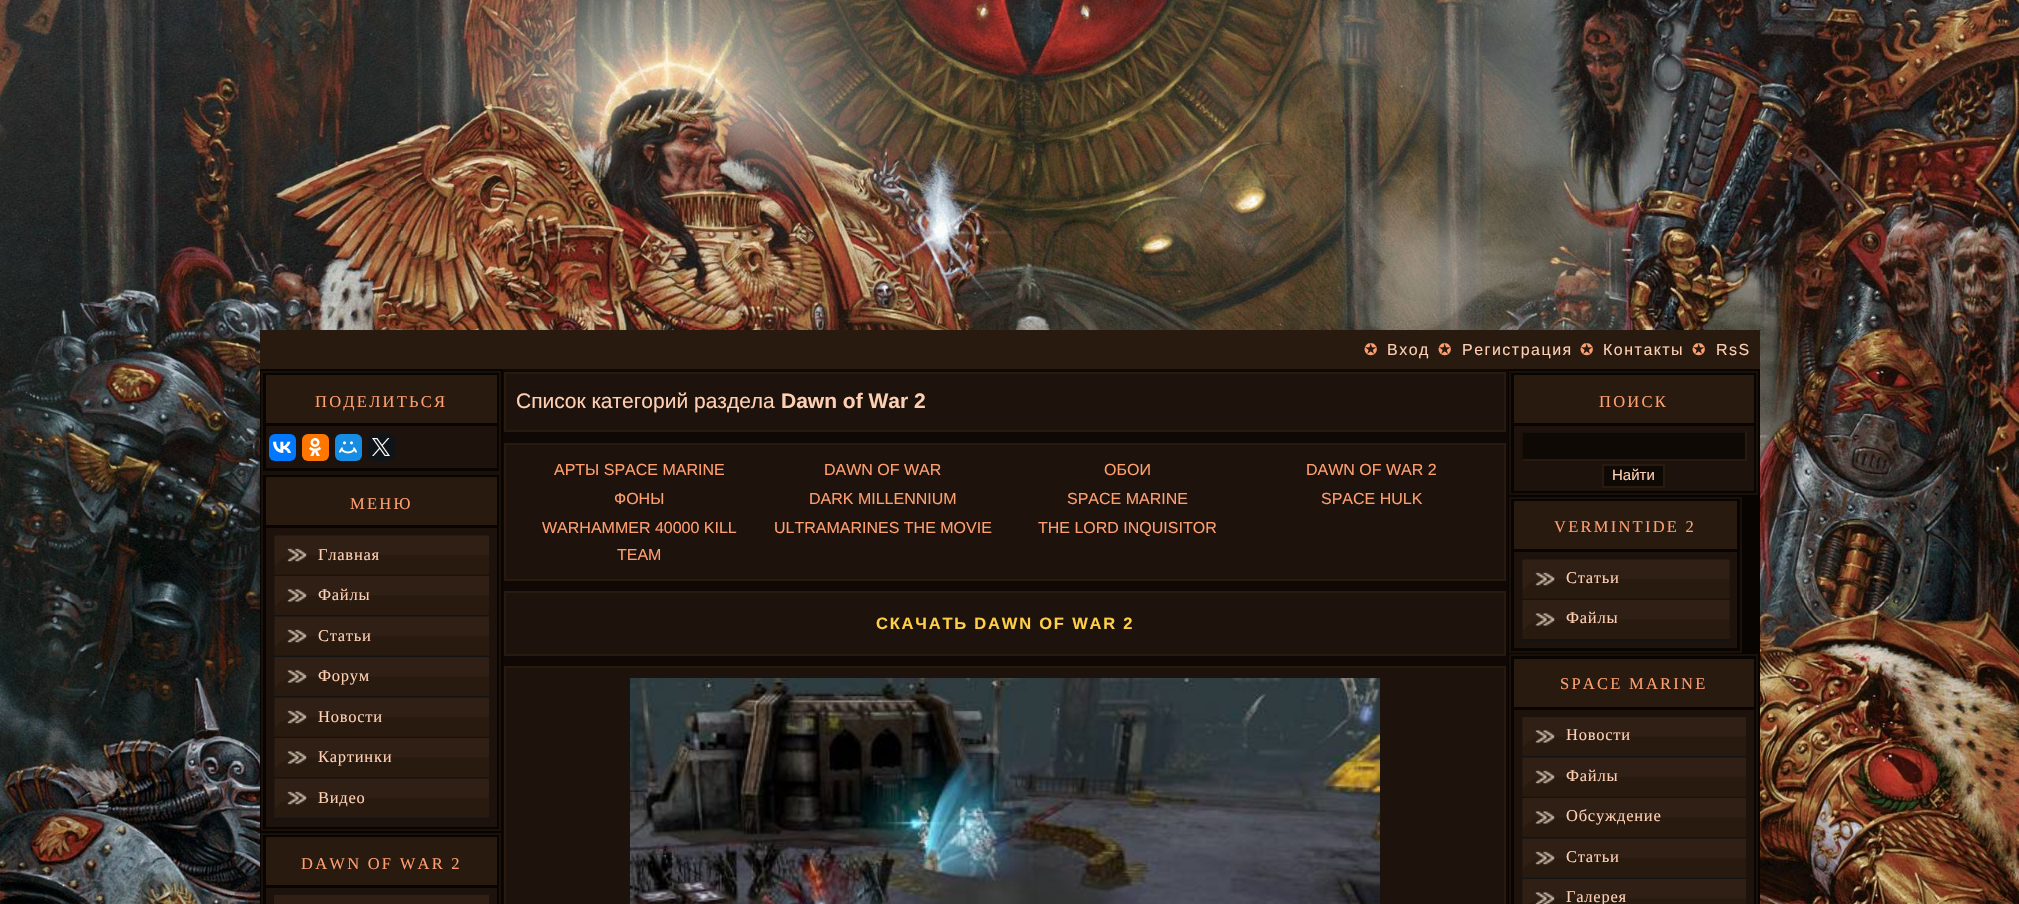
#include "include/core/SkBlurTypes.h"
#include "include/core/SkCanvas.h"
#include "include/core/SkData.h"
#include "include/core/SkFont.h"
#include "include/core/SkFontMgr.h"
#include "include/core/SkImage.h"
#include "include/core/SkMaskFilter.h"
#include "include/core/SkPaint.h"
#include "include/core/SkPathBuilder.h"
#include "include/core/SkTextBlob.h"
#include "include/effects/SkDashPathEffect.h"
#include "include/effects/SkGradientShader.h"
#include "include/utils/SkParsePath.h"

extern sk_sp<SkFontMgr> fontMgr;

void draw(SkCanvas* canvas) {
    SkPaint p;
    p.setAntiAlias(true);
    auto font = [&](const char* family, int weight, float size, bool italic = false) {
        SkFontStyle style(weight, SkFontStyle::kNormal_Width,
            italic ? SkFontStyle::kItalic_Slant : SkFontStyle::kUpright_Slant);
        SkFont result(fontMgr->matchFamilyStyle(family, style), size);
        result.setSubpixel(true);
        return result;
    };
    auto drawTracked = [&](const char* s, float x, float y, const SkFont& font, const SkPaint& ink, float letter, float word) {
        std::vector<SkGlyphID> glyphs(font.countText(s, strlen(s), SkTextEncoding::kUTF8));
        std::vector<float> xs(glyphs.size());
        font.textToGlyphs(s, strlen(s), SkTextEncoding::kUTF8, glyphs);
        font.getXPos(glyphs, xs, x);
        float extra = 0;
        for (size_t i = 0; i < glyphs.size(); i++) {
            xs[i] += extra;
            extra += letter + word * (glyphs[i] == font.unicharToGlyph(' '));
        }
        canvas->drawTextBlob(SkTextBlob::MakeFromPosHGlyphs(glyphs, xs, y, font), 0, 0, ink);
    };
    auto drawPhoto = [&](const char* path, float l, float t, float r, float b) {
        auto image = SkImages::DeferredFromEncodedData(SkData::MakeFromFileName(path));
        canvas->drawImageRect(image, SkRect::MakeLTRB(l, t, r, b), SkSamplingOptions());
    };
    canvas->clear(0xFFFFFFFF);
    drawPhoto("media/1.png", 0, 0, 2019, 904);
    p.setColor(0xFF291A10);
    canvas->drawRect(SkRect::MakeLTRB(260, 330, 1760, 369), p);
    auto font1 = font("DejaVu Sans", 400, 16);
    p.setColor(0xFFFF9F70);
    drawTracked("✪", 1364, 355, font1, p, 3, 0);
    auto font2 = font("Liberation Sans", 400, 16);
    p.setColor(0xFFFFCFB2);
    drawTracked("Вход", 1387, 355, font2, p, 1.5f, 0);
    p.setColor(0xFFFF9F70);
    drawTracked("✪", 1438, 355, font1, p, 3, 0);
    p.setColor(0xFFFFCFB2);
    drawTracked("Регистрация", 1462, 355, font2, p, 1.5f, 0);
    p.setColor(0xFFFF9F70);
    drawTracked("✪", 1580, 355, font1, p, 3, 0);
    p.setColor(0xFFFFCFB2);
    drawTracked("Контакты", 1603, 355, font2, p, 1.5f, 0);
    p.setColor(0xFFFF9F70);
    drawTracked("✪", 1692, 355, font1, p, 3, 0);
    p.setColor(0xFFFFCFB2);
    drawTracked("RsS", 1716, 355, font2, p, 1.5f, 0);
    p.setColor(0xFF070402);
    canvas->drawRect(SkRect::MakeLTRB(260, 369, 503, 904), p);
    p.setStyle(SkPaint::kStroke_Style);
    p.setStrokeWidth(2);
    p.setColor(0xFF19100A);
    canvas->drawRect(SkRect::MakeLTRB(262, 372, 500, 472), p);
    p.setStyle(SkPaint::kFill_Style);
    p.setColor(0xFF291A10);
    canvas->drawRect(SkRect::MakeLTRB(266, 375, 497, 423), p);
    auto font3 = font("Liberation Serif", 400, 16.5f);
    p.setColor(0xFFFF9F70);
    drawTracked("ПОДЕЛИТЬСЯ", 315, 407, font3, p, 2.25f, 0);
    p.setColor(0xFF1E130C);
    canvas->drawRect(SkRect::MakeLTRB(266, 426, 497, 468), p);
    p.setColor(0xFF0077FF);
    canvas->drawRoundRect(SkRect::MakeLTRB(269, 434, 296, 461), 6, 6, p);
    drawPhoto("media/2.png", 273, 441, 291, 453);
    p.setColor(0xFFFF7700);
    canvas->drawRoundRect(SkRect::MakeLTRB(302, 434, 329, 461), 6, 6, p);
    drawPhoto("media/3.png", 309, 438, 321, 456);
    p.setColor(0xFF168DE2);
    canvas->drawRoundRect(SkRect::MakeLTRB(335, 434, 362, 461), 6, 6, p);
    drawPhoto("media/4.png", 339, 441, 357, 454);
    p.setColor(0xFF0F1419);
    canvas->drawRoundRect(SkRect::MakeLTRB(368, 434, 395, 461), 6, 6, p);
    drawPhoto("media/5.png", 372, 438, 390, 456);
    p.setStyle(SkPaint::kStroke_Style);
    p.setColor(0xFF19100A);
    canvas->drawRect(SkRect::MakeLTRB(262, 474, 500, 830), p);
    p.setStyle(SkPaint::kFill_Style);
    p.setColor(0xFF291A10);
    canvas->drawRect(SkRect::MakeLTRB(266, 477, 497, 525), p);
    p.setColor(0xFFFF9F70);
    drawTracked("МЕНЮ", 350, 509, font3, p, 2.25f, 0);
    p.setColor(0xFF1E130C);
    canvas->drawRect(SkRect::MakeLTRB(266, 528, 497, 827), p);
    p.setColor(0xFF131313);
    canvas->drawRect(SkRect::MakeLTRB(273, 575, 489, 577), p);
    drawPhoto("media/6.png", 274, 535, 489, 575);
    p.setColor(0xFFFFCFB2);
    drawTracked("Главная", 318, 560, font3, p, 0.75f, 0);
    p.setColor(0xFF131313);
    canvas->drawRect(SkRect::MakeLTRB(273, 615, 489, 617), p);
    drawPhoto("media/7.png", 274, 576, 489, 615);
    p.setColor(0xFFFFCFB2);
    drawTracked("Файлы", 318, 600, font3, p, 0.75f, 0);
    p.setColor(0xFF131313);
    canvas->drawRect(SkRect::MakeLTRB(273, 656, 489, 658), p);
    drawPhoto("media/8.png", 274, 616, 489, 656);
    p.setColor(0xFFFFCFB2);
    drawTracked("Статьи", 318, 641, font3, p, 0.75f, 0);
    p.setColor(0xFF131313);
    canvas->drawRect(SkRect::MakeLTRB(273, 696, 489, 698), p);
    drawPhoto("media/7.png", 274, 657, 489, 696);
    p.setColor(0xFFFFCFB2);
    drawTracked("Форум", 318, 681, font3, p, 0.75f, 0);
    p.setColor(0xFF131313);
    canvas->drawRect(SkRect::MakeLTRB(273, 737, 489, 739), p);
    drawPhoto("media/8.png", 274, 697, 489, 737);
    p.setColor(0xFFFFCFB2);
    drawTracked("Новости", 318, 722, font3, p, 0.75f, 0);
    p.setColor(0xFF131313);
    canvas->drawRect(SkRect::MakeLTRB(273, 777, 489, 779), p);
    drawPhoto("media/7.png", 274, 738, 489, 777);
    p.setColor(0xFFFFCFB2);
    drawTracked("Картинки", 318, 762, font3, p, 0.75f, 0);
    p.setColor(0xFF131313);
    canvas->drawRect(SkRect::MakeLTRB(273, 818, 489, 820), p);
    drawPhoto("media/8.png", 274, 778, 489, 818);
    p.setColor(0xFFFFCFB2);
    drawTracked("Видео", 318, 803, font3, p, 0.75f, 0);
    p.setStyle(SkPaint::kStroke_Style);
    p.setColor(0xFF19100A);
    canvas->drawRect(SkRect::MakeLTRB(262, 834, 500, 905), p);
    p.setStyle(SkPaint::kFill_Style);
    p.setColor(0xFF291A10);
    canvas->drawRect(SkRect::MakeLTRB(266, 837, 497, 885), p);
    p.setColor(0xFFFF9F70);
    drawTracked("DAWN OF WAR 2", 301, 869, font3, p, 2.25f, 0);
    {
        const struct { float l, t, r, b; SkColor color; } items[] = {
            {266, 888, 497, 904, 0xFF1E130C},
            {274, 895, 489, 904, 0xFF2F1F14},
            {503, 369, 1508, 904, 0xFF0F0805},
        };
        for (auto [l, t, r, b, color] : items) {
            p.setColor(color);
            canvas->drawRect(SkRect::MakeLTRB(l, t, r, b), p);
        }
    }
    p.setColor(0xFF1E130C);
    canvas->drawRect(SkRect::MakeLTRB(505, 373, 1505, 431), p);
    p.setStyle(SkPaint::kStroke_Style);
    p.setColor(0xFF291A10);
    canvas->drawRect(SkRect::MakeLTRB(505, 373, 1505, 431), p);
    auto font4 = font("Liberation Sans", 400, 21);
    p.setStyle(SkPaint::kFill_Style);
    p.setColor(0xFFFFCFB2);
    canvas->drawString("Список категорий раздела", 516, 408, font4, p);
    auto font5 = font("Liberation Sans", 700, 21);
    canvas->drawString("Dawn of War 2", 781, 408, font5, p);
    p.setColor(0xFF1E130C);
    canvas->drawRect(SkRect::MakeLTRB(505, 444, 1505, 580), p);
    p.setStyle(SkPaint::kStroke_Style);
    p.setColor(0xFF291A10);
    canvas->drawRect(SkRect::MakeLTRB(505, 444, 1505, 580), p);
    p.setStyle(SkPaint::kFill_Style);
    p.setColor(0xFFFF9F70);
    {
        const struct { const char* s; float x, y; } items[] = {
            {"АРТЫ SPACE MARINE", 554, 475},
            {"DAWN OF WAR", 824, 475},
            {"ОБОИ", 1104, 475},
            {"DAWN OF WAR 2", 1306, 475},
            {"ФОНЫ", 614, 504},
            {"DARK MILLENNIUM", 809, 504},
            {"SPACE MARINE", 1067, 504},
            {"SPACE HULK", 1321, 504},
            {"WARHAMMER 40000 KILL", 542, 533},
            {"TEAM", 617, 560},
            {"ULTRAMARINES THE MOVIE", 774, 533},
            {"THE LORD INQUISITOR", 1038, 533},
        };
        for (auto [s, x, y] : items) {
            canvas->drawString(s, x, y, font2, p);
        }
    }
    p.setColor(0xFF1E130C);
    canvas->drawRect(SkRect::MakeLTRB(505, 592, 1505, 655), p);
    p.setStyle(SkPaint::kStroke_Style);
    p.setColor(0xFF291A10);
    canvas->drawRect(SkRect::MakeLTRB(505, 592, 1505, 655), p);
    auto font6 = font("Liberation Sans", 700, 16.5f);
    p.setStyle(SkPaint::kFill_Style);
    p.setColor(0xFFFFCF48);
    drawTracked("СКАЧАТЬ DAWN OF WAR 2", 876, 629, font6, p, 1.8f, 0);
    p.setColor(0xFF1E130C);
    canvas->drawRect(SkRect::MakeLTRB(505, 667, 1505, 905), p);
    p.setStyle(SkPaint::kStroke_Style);
    p.setColor(0xFF291A10);
    canvas->drawRect(SkRect::MakeLTRB(505, 667, 1505, 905), p);
    drawPhoto("media/9.png", 630, 678, 1380, 904);
    p.setStyle(SkPaint::kFill_Style);
    p.setColor(0xFF070402);
    canvas->drawRect(SkRect::MakeLTRB(1508, 369, 1760, 904), p);
    p.setStyle(SkPaint::kStroke_Style);
    p.setColor(0xFF19100A);
    canvas->drawRect(SkRect::MakeLTRB(1510, 372, 1757, 494), p);
    p.setStyle(SkPaint::kFill_Style);
    p.setColor(0xFF291A10);
    canvas->drawRect(SkRect::MakeLTRB(1514, 375, 1754, 423), p);
    p.setColor(0xFFFF9F70);
    drawTracked("ПОИСК", 1599, 407, font3, p, 2.25f, 0);
    {
        const struct { float l, t, r, b; SkColor color; } items[] = {
            {1514, 426, 1754, 491, 0xFF1E130C},
            {1523, 433, 1745, 459, 0xFF0F0906},
            {1521, 431, 1746, 433, 0xFF1B110B},
            {1745, 431, 1747, 461, 0xFF291A10},
            {1521, 459, 1746, 461, 0xFF291A10},
            {1521, 431, 1523, 461, 0xFF1B110B},
        };
        for (auto [l, t, r, b, color] : items) {
            p.setColor(color);
            canvas->drawRect(SkRect::MakeLTRB(l, t, r, b), p);
        }
    }
    p.setColor(0xFF0F0906);
    canvas->drawRect(SkRect::MakeLTRB(1603, 465, 1664, 487), p);
    p.setStyle(SkPaint::kStroke_Style);
    p.setColor(0xFF291A10);
    canvas->drawRect(SkRect::MakeLTRB(1603, 465, 1664, 487), p);
    auto font7 = font("Liberation Sans", 400, 15);
    p.setStyle(SkPaint::kFill_Style);
    p.setColor(0xFFFFCFB2);
    canvas->drawString("Найти", 1612, 480, font7, p);
    p.setStyle(SkPaint::kStroke_Style);
    p.setColor(0xFF19100A);
    canvas->drawRect(SkRect::MakeLTRB(1510, 498, 1741, 652), p);
    p.setStyle(SkPaint::kFill_Style);
    p.setColor(0xFF291A10);
    canvas->drawRect(SkRect::MakeLTRB(1514, 501, 1737, 549), p);
    p.setColor(0xFFFF9F70);
    drawTracked("VERMINTIDE 2", 1554, 532, font3, p, 2.25f, 0);
    p.setColor(0xFF1E130C);
    canvas->drawRect(SkRect::MakeLTRB(1514, 552, 1737, 648), p);
    p.setColor(0xFF131313);
    canvas->drawRect(SkRect::MakeLTRB(1521, 599, 1730, 601), p);
    drawPhoto("media/10.png", 1522, 559, 1730, 599);
    p.setColor(0xFFFFCFB2);
    drawTracked("Статьи", 1566, 583, font3, p, 0.75f, 0);
    p.setColor(0xFF131313);
    canvas->drawRect(SkRect::MakeLTRB(1521, 639, 1730, 641), p);
    drawPhoto("media/11.png", 1522, 600, 1730, 639);
    p.setColor(0xFFFFCFB2);
    drawTracked("Файлы", 1566, 623, font3, p, 0.75f, 0);
    p.setStyle(SkPaint::kStroke_Style);
    p.setColor(0xFF19100A);
    canvas->drawRect(SkRect::MakeLTRB(1510, 655, 1757, 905), p);
    p.setStyle(SkPaint::kFill_Style);
    p.setColor(0xFF291A10);
    canvas->drawRect(SkRect::MakeLTRB(1514, 659, 1754, 707), p);
    p.setColor(0xFFFF9F70);
    drawTracked("SPACE MARINE", 1560, 689, font3, p, 2.25f, 0);
    p.setColor(0xFF1E130C);
    canvas->drawRect(SkRect::MakeLTRB(1514, 710, 1754, 904), p);
    p.setColor(0xFF131313);
    canvas->drawRect(SkRect::MakeLTRB(1521, 756, 1746, 758), p);
    drawPhoto("media/12.png", 1522, 717, 1746, 756);
    p.setColor(0xFFFFCFB2);
    drawTracked("Новости", 1566, 740, font3, p, 0.75f, 0);
    p.setColor(0xFF131313);
    canvas->drawRect(SkRect::MakeLTRB(1521, 797, 1746, 799), p);
    drawPhoto("media/13.png", 1522, 757, 1746, 797);
    p.setColor(0xFFFFCFB2);
    drawTracked("Файлы", 1566, 781, font3, p, 0.75f, 0);
    p.setColor(0xFF131313);
    canvas->drawRect(SkRect::MakeLTRB(1521, 837, 1746, 839), p);
    drawPhoto("media/14.png", 1522, 798, 1746, 837);
    p.setColor(0xFFFFCFB2);
    drawTracked("Обсуждение", 1566, 821, font3, p, 0.75f, 0);
    p.setColor(0xFF131313);
    canvas->drawRect(SkRect::MakeLTRB(1521, 878, 1746, 880), p);
    drawPhoto("media/13.png", 1522, 838, 1746, 878);
    p.setColor(0xFFFFCFB2);
    drawTracked("Статьи", 1566, 862, font3, p, 0.75f, 0);
    drawPhoto("media/15.png", 1522, 879, 1746, 904);
    drawTracked("Галерея", 1566, 902, font3, p, 0.75f, 0);
}
